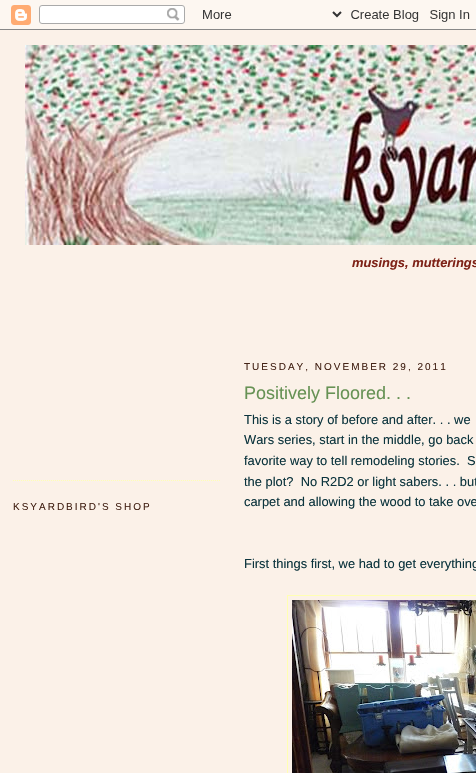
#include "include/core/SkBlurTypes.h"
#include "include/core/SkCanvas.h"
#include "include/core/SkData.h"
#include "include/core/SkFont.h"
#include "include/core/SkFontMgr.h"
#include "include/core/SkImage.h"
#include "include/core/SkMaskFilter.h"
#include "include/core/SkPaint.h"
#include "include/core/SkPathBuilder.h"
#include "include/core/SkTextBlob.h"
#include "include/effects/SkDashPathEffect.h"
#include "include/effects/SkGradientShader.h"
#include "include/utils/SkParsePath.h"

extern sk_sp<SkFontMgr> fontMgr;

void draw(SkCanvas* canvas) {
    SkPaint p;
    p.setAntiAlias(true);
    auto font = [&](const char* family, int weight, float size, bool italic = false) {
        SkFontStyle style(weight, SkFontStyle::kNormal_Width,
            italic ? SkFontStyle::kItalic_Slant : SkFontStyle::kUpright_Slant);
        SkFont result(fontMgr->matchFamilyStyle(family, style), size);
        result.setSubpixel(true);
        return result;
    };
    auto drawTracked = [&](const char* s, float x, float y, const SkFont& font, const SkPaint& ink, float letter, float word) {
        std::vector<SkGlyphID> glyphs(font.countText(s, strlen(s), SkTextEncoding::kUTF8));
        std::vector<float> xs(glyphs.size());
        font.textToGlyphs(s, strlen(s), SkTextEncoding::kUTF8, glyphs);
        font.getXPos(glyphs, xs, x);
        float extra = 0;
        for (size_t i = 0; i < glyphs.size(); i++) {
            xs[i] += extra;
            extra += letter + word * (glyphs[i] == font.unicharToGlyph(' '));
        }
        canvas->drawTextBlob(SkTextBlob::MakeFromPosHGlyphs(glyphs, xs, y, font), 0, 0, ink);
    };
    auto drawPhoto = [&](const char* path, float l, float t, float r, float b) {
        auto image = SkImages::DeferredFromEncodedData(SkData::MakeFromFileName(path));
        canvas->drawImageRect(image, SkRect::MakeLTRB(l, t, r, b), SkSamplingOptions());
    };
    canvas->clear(0xFFFBF1E8);
    drawPhoto("media/1.png", 0, 0, 476, 30);
    drawPhoto("media/2.png", 25, 45, 476, 245);
    auto font1 = font("Liberation Sans", 700, 12.9f, true);
    p.setColor(0xFF7E2217);
    canvas->drawString("musings, mutterings", 352, 267, font1, p);
    p.setStyle(SkPaint::kStroke_Style);
    p.setStrokeWidth(1);
    p.setColor(0xFFFFFFB3);
    p.setPathEffect(SkDashPathEffect::Make({{1, 1}}, 0));
    canvas->drawPath(SkPathBuilder().moveTo(13, 480.5f).lineTo(220, 480.5f).detach(), p);
    p.setPathEffect(nullptr);
    auto font2 = font("Liberation Sans", 400, 10);
    p.setStyle(SkPaint::kFill_Style);
    p.setColor(0xFF442316);
    drawTracked("KSYARDBIRD'S SHOP", 13, 510, font2, p, 2, 0);
    drawTracked("TUESDAY, NOVEMBER 29, 2011", 244, 370, font2, p, 2, 0);
    auto font3 = font("Liberation Sans", 400, 18);
    p.setColor(0xFF679255);
    canvas->drawString("Positively Floored. . .", 244, 399, font3, p);
    auto font4 = font("Liberation Sans", 400, 12.9f);
    p.setColor(0xFF0C343D);
    {
        const struct { const char* s; float x, y; } items[] = {
            {"This is a story of before and after. . . we", 244, 424},
            {"Wars series, start in the middle, go back", 244, 444},
            {"favorite way to tell remodeling stories.  S", 244, 465},
            {"the plot?  No R2D2 or light sabers. . . but", 244, 486},
            {"carpet and allowing the wood to take ove", 244, 506},
            {"First things first, we had to get everything", 244, 568},
        };
        for (auto [s, x, y] : items) {
            canvas->drawString(s, x, y, font4, p);
        }
    }
    p.setStyle(SkPaint::kStroke_Style);
    p.setColor(0xFFFFFFB3);
    canvas->drawRect(SkRect::MakeLTRB(287.5f, 595.5f, 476.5f, 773.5f), p);
    drawPhoto("media/3.png", 292, 600, 476, 773);
}
